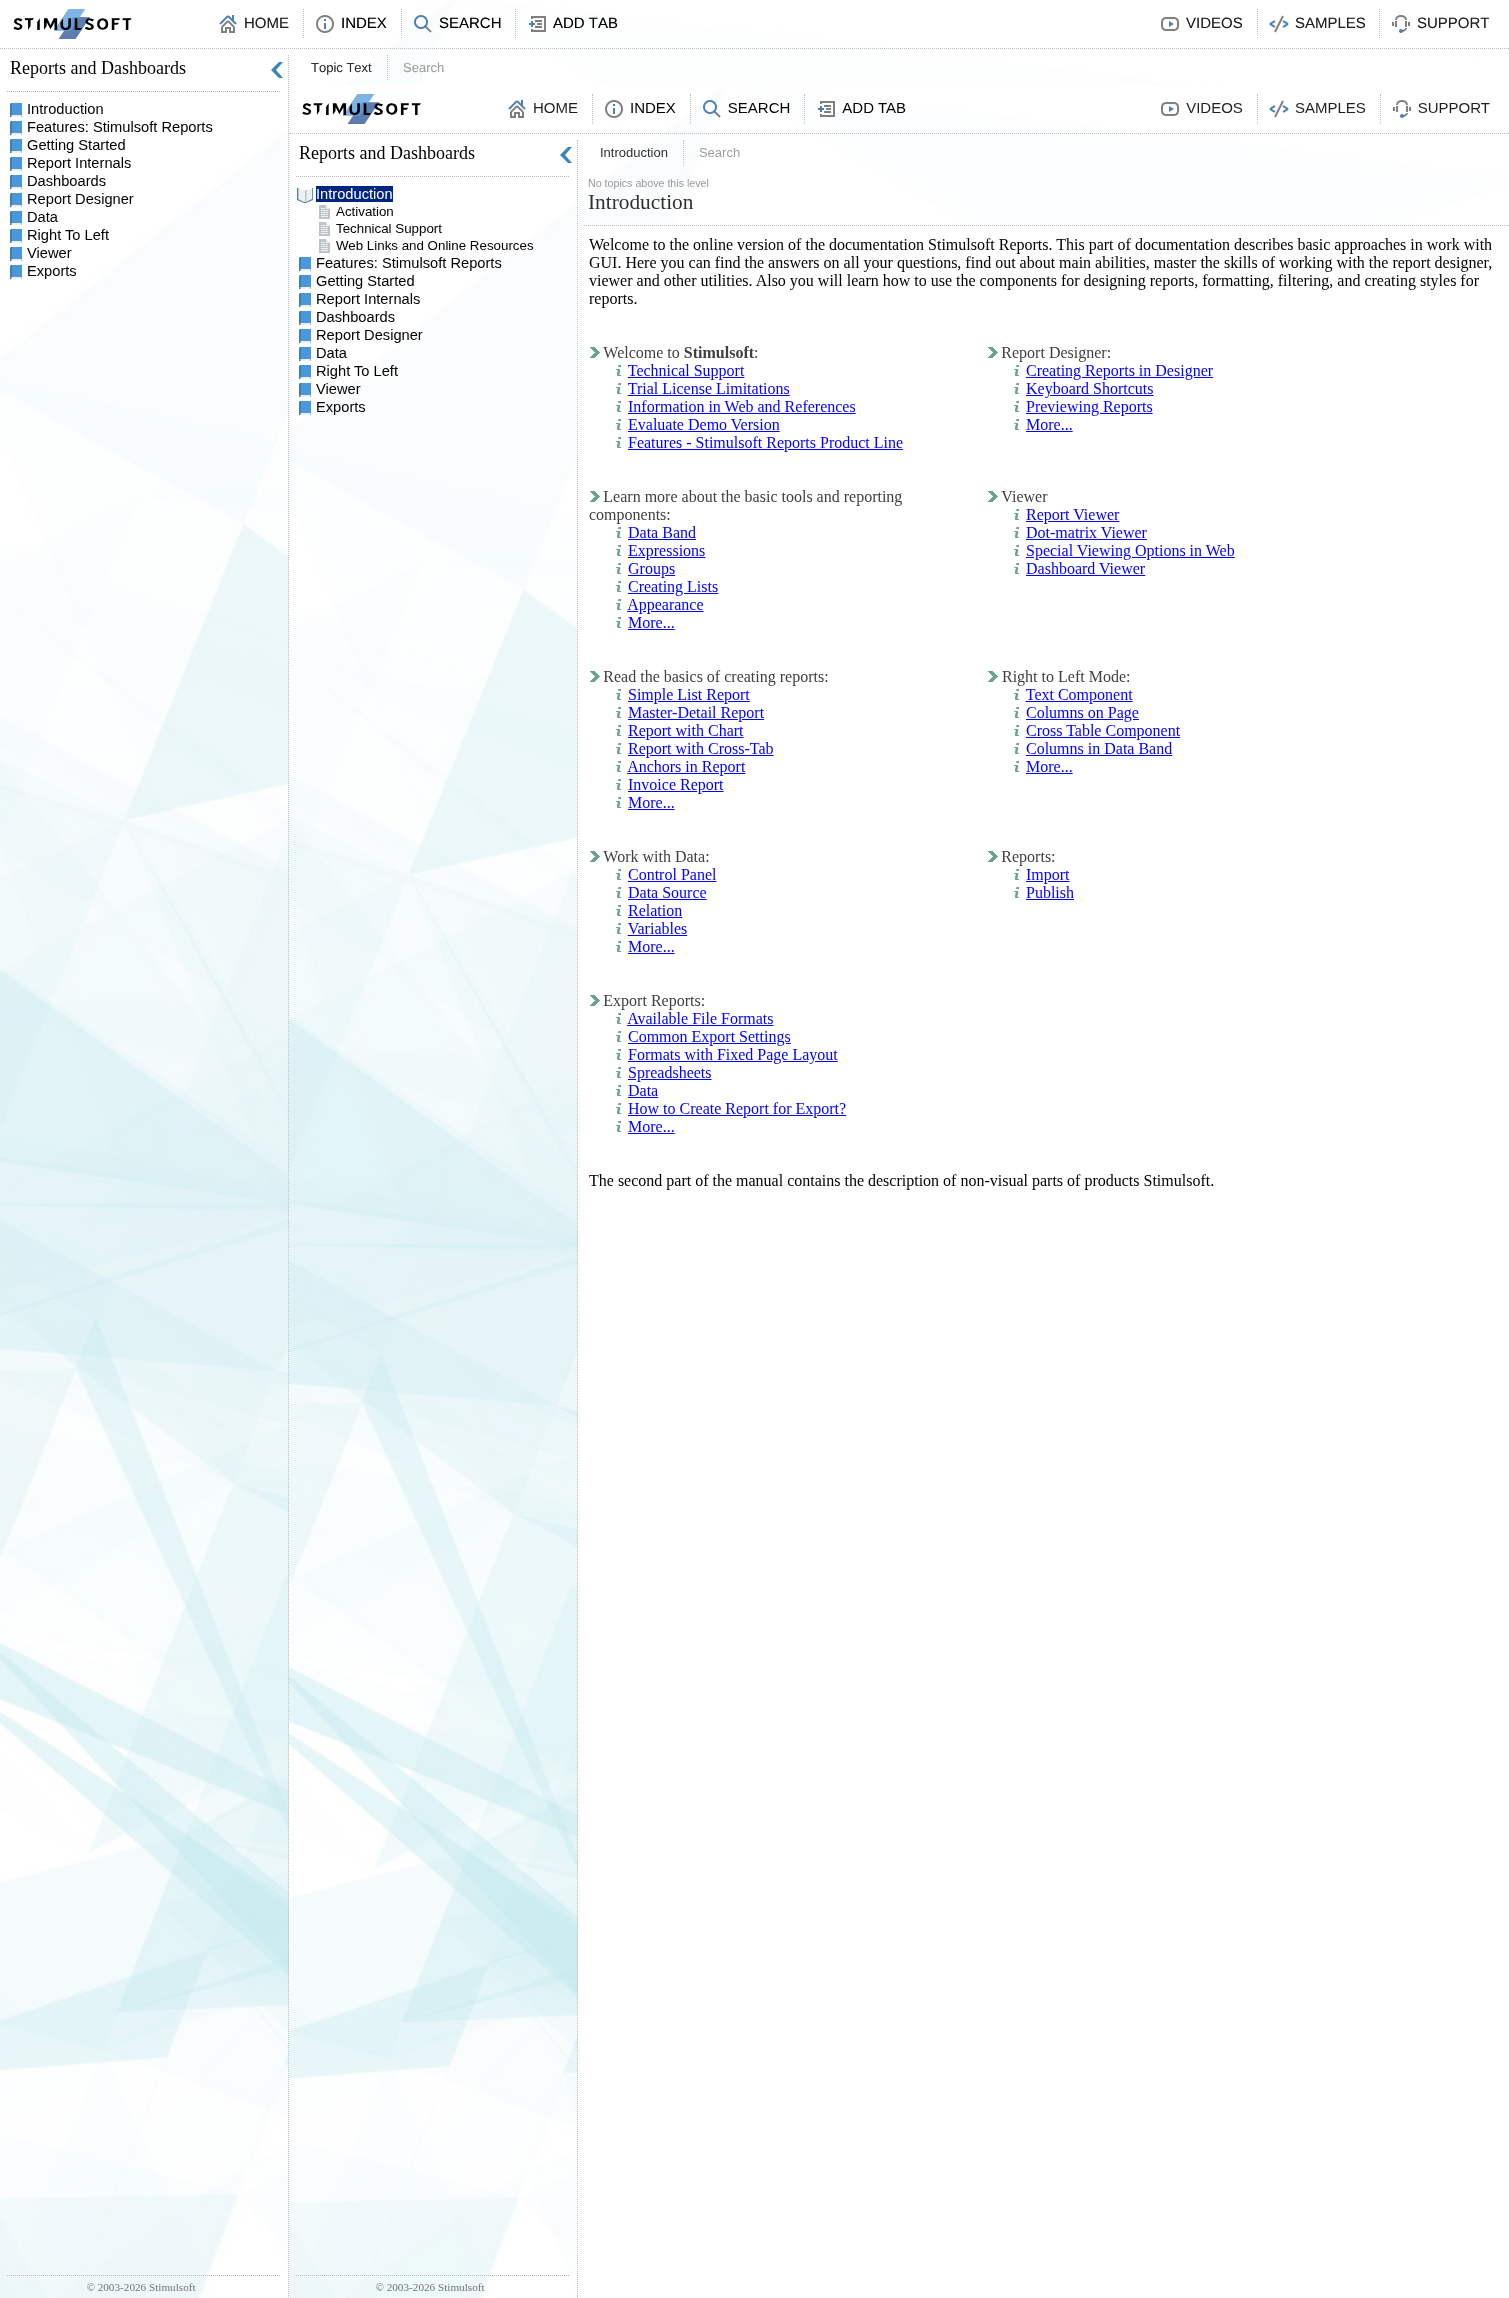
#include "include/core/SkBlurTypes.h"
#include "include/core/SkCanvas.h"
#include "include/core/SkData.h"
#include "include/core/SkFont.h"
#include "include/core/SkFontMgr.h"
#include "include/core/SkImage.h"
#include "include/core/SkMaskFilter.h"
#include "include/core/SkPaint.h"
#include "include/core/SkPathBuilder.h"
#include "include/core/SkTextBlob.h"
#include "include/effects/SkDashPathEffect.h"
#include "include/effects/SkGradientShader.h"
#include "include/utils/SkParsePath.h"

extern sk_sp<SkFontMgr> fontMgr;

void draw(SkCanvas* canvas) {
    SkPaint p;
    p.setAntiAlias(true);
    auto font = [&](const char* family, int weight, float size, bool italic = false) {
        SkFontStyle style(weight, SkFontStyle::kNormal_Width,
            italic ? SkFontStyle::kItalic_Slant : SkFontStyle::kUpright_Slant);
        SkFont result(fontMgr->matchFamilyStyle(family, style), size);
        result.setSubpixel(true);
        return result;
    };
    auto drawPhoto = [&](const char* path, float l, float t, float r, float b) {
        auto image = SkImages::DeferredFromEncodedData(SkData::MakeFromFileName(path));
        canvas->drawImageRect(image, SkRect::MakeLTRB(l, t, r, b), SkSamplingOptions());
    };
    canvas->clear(0xFFFFFFFF);
    drawPhoto("media/1.png", 0, 0, 1509, 2298);
    p.setStyle(SkPaint::kStroke_Style);
    p.setStrokeWidth(1);
    p.setColor(0xFFC0C0C0);
    p.setPathEffect(SkDashPathEffect::Make({{1, 1}}, 0));
    canvas->drawPath(SkPathBuilder().moveTo(0, 48.5f).lineTo(1509, 48.5f).detach(), p);
    p.setPathEffect(nullptr);
    drawPhoto("media/2.png", 13, 9, 132, 39);
    p.setPathEffect(SkDashPathEffect::Make({{1, 1}}, 0));
    canvas->drawPath(SkPathBuilder().moveTo(303.5f, 9).lineTo(303.5f, 39).detach(), p);
    p.setPathEffect(nullptr);
    drawPhoto("media/3.png", 219, 15, 237, 33);
    auto font1 = font("Liberation Sans", 400, 15);
    p.setStyle(SkPaint::kFill_Style);
    p.setColor(0xFF1F1F1F);
    canvas->drawString("HOME", 244, 28, font1, p);
    p.setStyle(SkPaint::kStroke_Style);
    p.setColor(0xFFC0C0C0);
    p.setPathEffect(SkDashPathEffect::Make({{1, 1}}, 0));
    canvas->drawPath(SkPathBuilder().moveTo(401.5f, 9).lineTo(401.5f, 39).detach(), p);
    p.setPathEffect(nullptr);
    drawPhoto("media/4.png", 316, 15, 334, 33);
    p.setStyle(SkPaint::kFill_Style);
    p.setColor(0xFF000000);
    canvas->drawString("INDEX", 341, 28, font1, p);
    p.setStyle(SkPaint::kStroke_Style);
    p.setColor(0xFFC0C0C0);
    p.setPathEffect(SkDashPathEffect::Make({{1, 1}}, 0));
    canvas->drawPath(SkPathBuilder().moveTo(515.5f, 9).lineTo(515.5f, 39).detach(), p);
    p.setPathEffect(nullptr);
    drawPhoto("media/5.png", 414, 15, 432, 33);
    p.setStyle(SkPaint::kFill_Style);
    p.setColor(0xFF000000);
    canvas->drawString("SEARCH", 439, 28, font1, p);
    drawPhoto("media/6.png", 529, 16, 546, 32);
    canvas->drawString("ADD TAB", 553, 28, font1, p);
    p.setStyle(SkPaint::kStroke_Style);
    p.setColor(0xFFC0C0C0);
    p.setPathEffect(SkDashPathEffect::Make({{1, 1}}, 0));
    canvas->drawPath(SkPathBuilder().moveTo(1257.5f, 9).lineTo(1257.5f, 39).detach(), p);
    p.setPathEffect(nullptr);
    drawPhoto("media/7.png", 1161, 17, 1179, 31);
    p.setStyle(SkPaint::kFill_Style);
    p.setColor(0xFF1F1F1F);
    canvas->drawString("VIDEOS", 1186, 28, font1, p);
    p.setStyle(SkPaint::kStroke_Style);
    p.setColor(0xFFC0C0C0);
    p.setPathEffect(SkDashPathEffect::Make({{1, 1}}, 0));
    canvas->drawPath(SkPathBuilder().moveTo(1379.5f, 9).lineTo(1379.5f, 39).detach(), p);
    p.setPathEffect(nullptr);
    drawPhoto("media/8.png", 1269, 15, 1289, 33);
    p.setStyle(SkPaint::kFill_Style);
    p.setColor(0xFF1F1F1F);
    canvas->drawString("SAMPLES", 1295, 28, font1, p);
    drawPhoto("media/9.png", 1392, 15, 1410, 33);
    canvas->drawString("SUPPORT", 1417, 28, font1, p);
    drawPhoto("media/10.png", 7, 61, 280, 2291);
    p.setStyle(SkPaint::kStroke_Style);
    p.setColor(0xFFC0C0C0);
    p.setPathEffect(SkDashPathEffect::Make({{1, 1}}, 0));
    canvas->drawPath(SkPathBuilder().moveTo(288.5f, 55).lineTo(288.5f, 2298).detach(), p);
    p.setPathEffect(nullptr);
    drawPhoto("media/11.png", 271, 62, 283, 78);
    p.setPathEffect(SkDashPathEffect::Make({{1, 1}}, 0));
    canvas->drawPath(SkPathBuilder().moveTo(387.5f, 55).lineTo(387.5f, 81).detach(), p);
    p.setPathEffect(nullptr);
    auto font2 = font("Liberation Sans", 400, 13);
    p.setStyle(SkPaint::kFill_Style);
    p.setColor(0xFF303030);
    canvas->drawString("Topic Text", 311, 72, font2, p);
    p.setColor(0xFF9E9E9E);
    canvas->drawString("Search", 403, 72, font2, p);
    drawPhoto("media/12.png", 289, 85, 1509, 2298);
}
